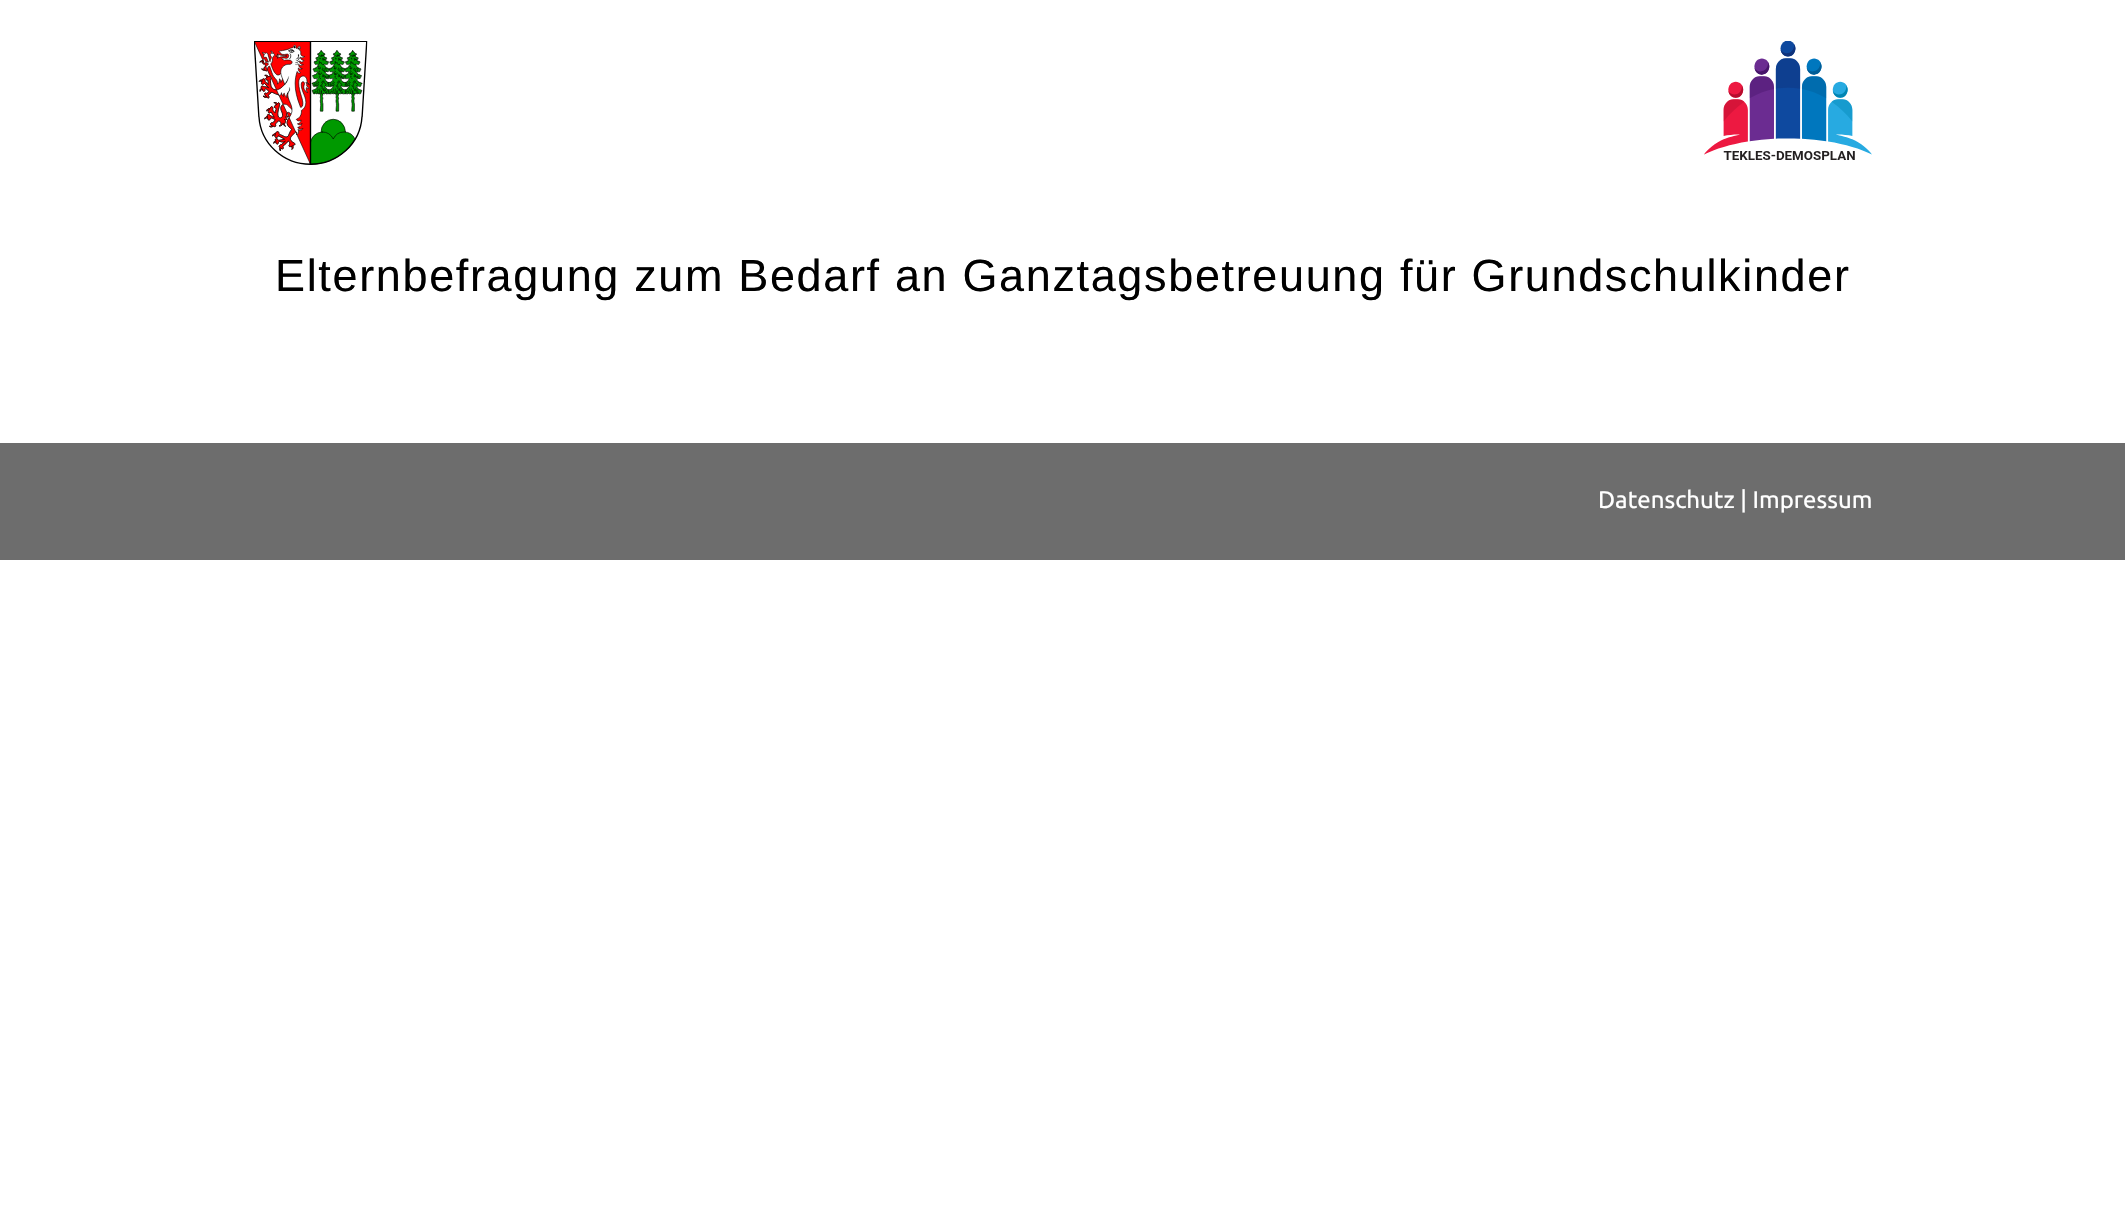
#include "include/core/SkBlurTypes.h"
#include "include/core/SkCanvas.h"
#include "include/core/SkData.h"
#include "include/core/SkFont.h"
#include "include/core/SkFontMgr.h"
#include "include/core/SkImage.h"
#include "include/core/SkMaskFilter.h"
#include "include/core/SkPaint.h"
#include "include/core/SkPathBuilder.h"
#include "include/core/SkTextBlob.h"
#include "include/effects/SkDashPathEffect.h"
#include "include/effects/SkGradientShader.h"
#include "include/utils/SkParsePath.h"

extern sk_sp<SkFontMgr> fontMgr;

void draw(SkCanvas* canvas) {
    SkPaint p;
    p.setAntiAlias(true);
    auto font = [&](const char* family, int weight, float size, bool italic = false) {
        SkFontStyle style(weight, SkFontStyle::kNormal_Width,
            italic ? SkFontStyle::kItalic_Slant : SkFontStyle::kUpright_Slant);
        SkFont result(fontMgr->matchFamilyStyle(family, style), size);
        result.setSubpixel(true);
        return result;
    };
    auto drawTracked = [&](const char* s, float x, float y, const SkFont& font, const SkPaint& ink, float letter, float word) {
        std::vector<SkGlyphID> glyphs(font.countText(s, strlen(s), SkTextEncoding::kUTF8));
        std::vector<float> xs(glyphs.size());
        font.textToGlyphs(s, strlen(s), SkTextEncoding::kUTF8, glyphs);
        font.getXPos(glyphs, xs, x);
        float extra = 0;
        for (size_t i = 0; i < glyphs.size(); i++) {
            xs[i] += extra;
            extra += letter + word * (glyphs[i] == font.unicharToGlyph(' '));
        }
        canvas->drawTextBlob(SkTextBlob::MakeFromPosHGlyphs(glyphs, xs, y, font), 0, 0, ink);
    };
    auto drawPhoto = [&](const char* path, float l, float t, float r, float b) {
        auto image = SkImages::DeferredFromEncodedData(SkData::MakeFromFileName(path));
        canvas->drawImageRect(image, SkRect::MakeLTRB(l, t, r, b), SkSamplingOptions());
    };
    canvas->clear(0xFFFFFFFF);
    drawPhoto("media/1.png", 254, 41, 368, 165);
    drawPhoto("media/2.png", 1704, 41, 1872, 160);
    auto font1 = font("Liberation Sans", 400, 45);
    p.setColor(0xFF000000);
    drawTracked("Elternbefragung zum Bedarf an Ganztagsbetreuung für Grundschulkinder", 275, 291, font1, p, 1.65f, 0);
    p.setColor(0xFF6D6D6D);
    canvas->drawRect(SkRect::MakeLTRB(0, 443, 2125, 560), p);
    auto font2 = font("Ubuntu", 400, 24);
    p.setColor(0xFFFFFFFF);
    canvas->drawString("Datenschutz | Impressum", 1598, 508, font2, p);
}
